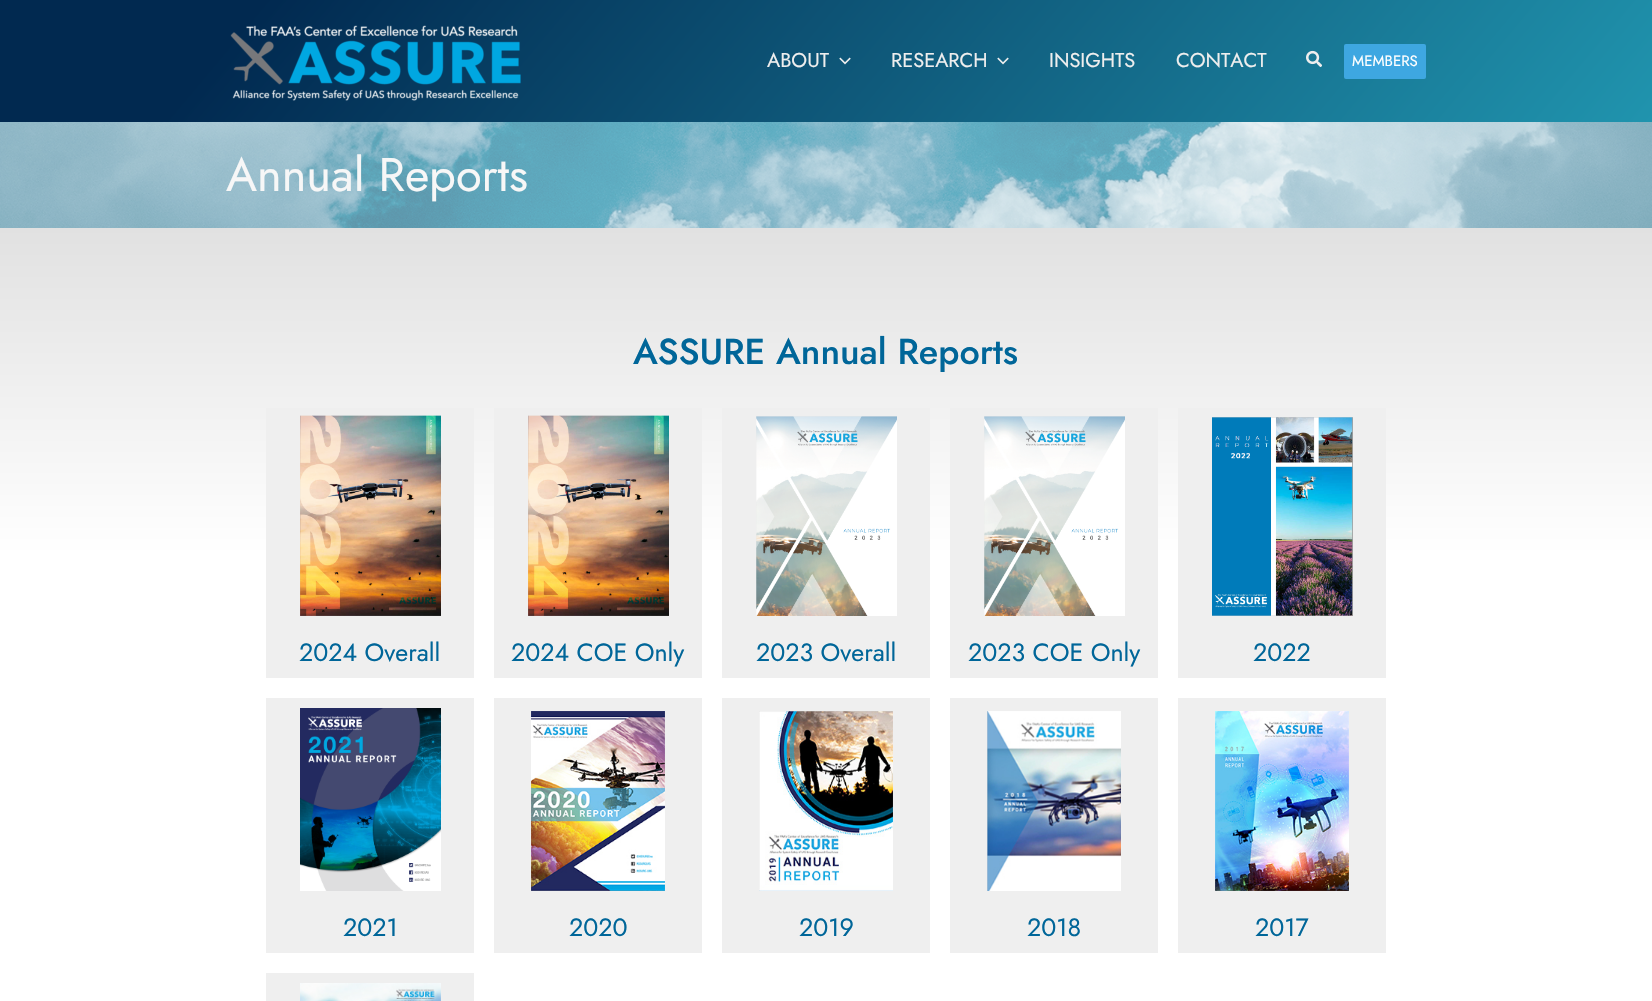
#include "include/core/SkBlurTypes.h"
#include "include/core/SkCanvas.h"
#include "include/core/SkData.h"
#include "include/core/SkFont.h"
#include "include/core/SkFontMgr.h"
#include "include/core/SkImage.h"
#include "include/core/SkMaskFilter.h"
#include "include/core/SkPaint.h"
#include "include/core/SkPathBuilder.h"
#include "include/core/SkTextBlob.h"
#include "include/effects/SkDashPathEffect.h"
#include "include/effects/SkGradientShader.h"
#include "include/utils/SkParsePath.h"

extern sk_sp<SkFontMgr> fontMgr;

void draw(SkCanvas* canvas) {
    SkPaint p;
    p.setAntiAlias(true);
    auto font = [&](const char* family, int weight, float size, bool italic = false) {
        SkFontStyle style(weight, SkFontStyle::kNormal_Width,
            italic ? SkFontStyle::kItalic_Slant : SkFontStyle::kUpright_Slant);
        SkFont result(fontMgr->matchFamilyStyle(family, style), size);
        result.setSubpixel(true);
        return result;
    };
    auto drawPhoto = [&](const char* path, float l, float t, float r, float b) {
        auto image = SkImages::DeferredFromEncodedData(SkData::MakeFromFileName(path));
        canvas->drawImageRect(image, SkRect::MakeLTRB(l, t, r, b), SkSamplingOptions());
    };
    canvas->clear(0xFFEAEAEA);
    {
        const SkColor colors[] = {0xFF012950, 0xFF2094AE};
        const float stops[] = {0.15f, 1};
        const SkPoint ends[] = {{311, -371}, {1341, 493}};
        p.setShader(SkGradientShader::MakeLinear(ends, colors, stops, 2, SkTileMode::kClamp));
        p.setAlpha(255);
    }
    canvas->drawRect(SkRect::MakeLTRB(0, 0, 1652, 122), p);
    drawPhoto("media/1.png", 230, 25, 521, 101);
    auto font1 = font("Jost", 400, 20);
    p.setShader(nullptr);
    p.setColor(0xFFEEEEEE);
    canvas->drawString("ABOUT", 767, 67, font1, p);
    drawPhoto("media/2.png", 839, 57, 851, 65);
    canvas->drawString("RESEARCH", 891, 67, font1, p);
    drawPhoto("media/3.png", 997, 57, 1009, 65);
    canvas->drawString("INSIGHTS", 1049, 67, font1, p);
    canvas->drawString("CONTACT", 1176, 67, font1, p);
    drawPhoto("media/4.png", 1306, 50, 1322, 67);
    p.setColor(0xFF3EA7E1);
    canvas->drawRoundRect(SkRect::MakeLTRB(1344, 44, 1426, 79), 2, 2, p);
    auto font2 = font("Jost", 400, 15);
    p.setColor(0xFFFFFFFF);
    canvas->drawString("MEMBERS", 1352, 66, font2, p);
    drawPhoto("media/5.png", 0, 122, 1652, 228);
    auto font3 = font("Jost", 400, 47);
    p.setColor(0xFFF7F7F7);
    canvas->drawString("Annual Reports", 226, 191, font3, p);
    {
        const SkColor colors[] = {0xFFE1E1E1, 0xFFFFFFFF};
        const float stops[] = {0, 0.3f};
        const SkPoint ends[] = {{826, 228}, {826, 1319}};
        p.setShader(SkGradientShader::MakeLinear(ends, colors, stops, 2, SkTileMode::kClamp));
        p.setAlpha(255);
    }
    canvas->drawRect(SkRect::MakeLTRB(0, 228, 1652, 1001), p);
    auto font4 = font("Jost", 500, 36);
    p.setShader(nullptr);
    p.setColor(0xFF006699);
    canvas->drawString("ASSURE Annual Reports", 633, 364, font4, p);
    p.setColor(0xFFEFEFEF);
    canvas->drawRect(SkRect::MakeLTRB(266, 408, 474, 678), p);
    drawPhoto("media/6.png", 300, 415, 441, 616);
    auto font5 = font("Jost", 400, 25);
    p.setColor(0xFF006699);
    canvas->drawString("2024 Overall", 299, 661, font5, p);
    p.setColor(0xFFEFEFEF);
    canvas->drawRect(SkRect::MakeLTRB(494, 408, 702, 678), p);
    drawPhoto("media/6.png", 528, 415, 669, 616);
    p.setColor(0xFF006699);
    canvas->drawString("2024 COE Only", 511, 661, font5, p);
    p.setColor(0xFFEFEFEF);
    canvas->drawRect(SkRect::MakeLTRB(722, 408, 930, 678), p);
    drawPhoto("media/7.png", 756, 416, 897, 616);
    p.setColor(0xFF006699);
    canvas->drawString("2023 Overall", 756, 661, font5, p);
    p.setColor(0xFFEFEFEF);
    canvas->drawRect(SkRect::MakeLTRB(950, 408, 1158, 678), p);
    drawPhoto("media/7.png", 984, 416, 1125, 616);
    p.setColor(0xFF006699);
    canvas->drawString("2023 COE Only", 968, 661, font5, p);
    p.setColor(0xFFEFEFEF);
    canvas->drawRect(SkRect::MakeLTRB(1178, 408, 1386, 678), p);
    drawPhoto("media/8.png", 1212, 417, 1353, 616);
    p.setColor(0xFF006699);
    canvas->drawString("2022", 1253, 661, font5, p);
    p.setColor(0xFFEFEFEF);
    canvas->drawRect(SkRect::MakeLTRB(266, 698, 474, 953), p);
    drawPhoto("media/9.png", 300, 708, 441, 891);
    p.setColor(0xFF006699);
    canvas->drawString("2021", 343, 936, font5, p);
    p.setColor(0xFFEFEFEF);
    canvas->drawRect(SkRect::MakeLTRB(494, 698, 702, 953), p);
    drawPhoto("media/10.png", 531, 711, 665, 891);
    p.setColor(0xFF006699);
    canvas->drawString("2020", 569, 936, font5, p);
    p.setColor(0xFFEFEFEF);
    canvas->drawRect(SkRect::MakeLTRB(722, 698, 930, 953), p);
    drawPhoto("media/11.png", 759, 711, 893, 891);
    p.setColor(0xFF006699);
    canvas->drawString("2019", 799, 936, font5, p);
    p.setColor(0xFFEFEFEF);
    canvas->drawRect(SkRect::MakeLTRB(950, 698, 1158, 953), p);
    drawPhoto("media/12.png", 987, 711, 1121, 891);
    p.setColor(0xFF006699);
    canvas->drawString("2018", 1027, 936, font5, p);
    p.setColor(0xFFEFEFEF);
    canvas->drawRect(SkRect::MakeLTRB(1178, 698, 1386, 953), p);
    drawPhoto("media/13.png", 1215, 711, 1349, 891);
    p.setColor(0xFF006699);
    canvas->drawString("2017", 1255, 936, font5, p);
    p.setColor(0xFFEFEFEF);
    canvas->drawRect(SkRect::MakeLTRB(266, 973, 474, 1001), p);
    drawPhoto("media/14.png", 300, 983, 441, 1001);
}
